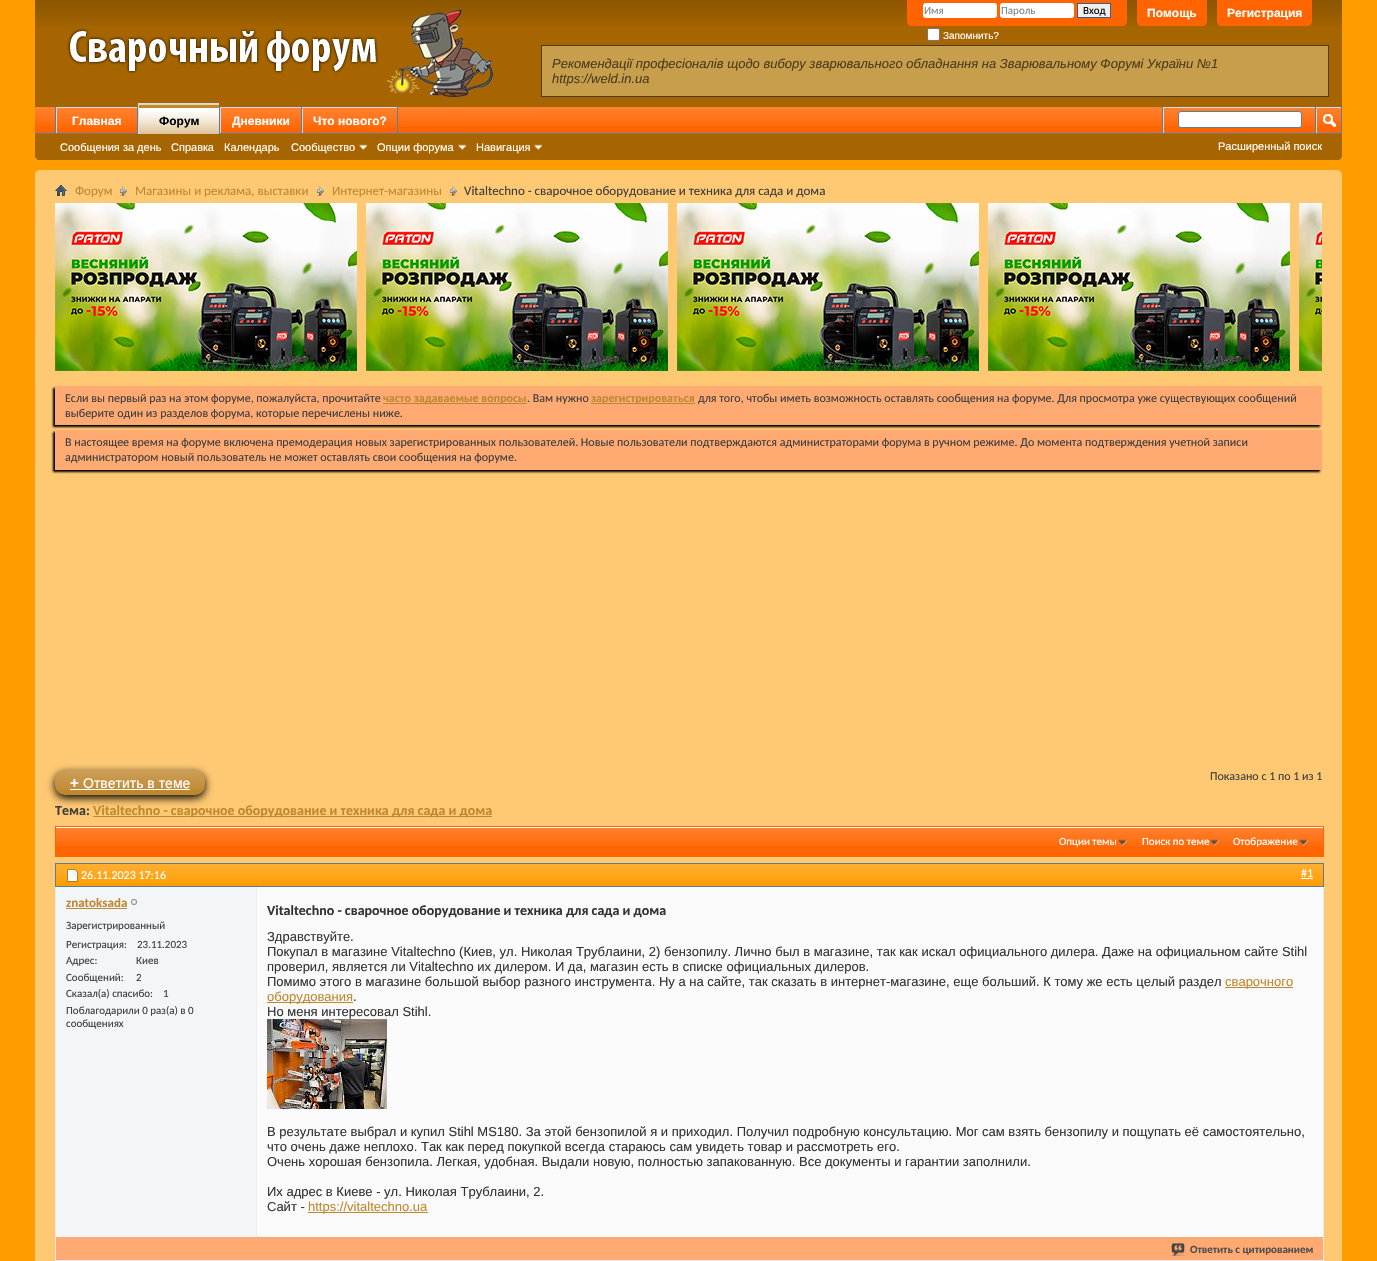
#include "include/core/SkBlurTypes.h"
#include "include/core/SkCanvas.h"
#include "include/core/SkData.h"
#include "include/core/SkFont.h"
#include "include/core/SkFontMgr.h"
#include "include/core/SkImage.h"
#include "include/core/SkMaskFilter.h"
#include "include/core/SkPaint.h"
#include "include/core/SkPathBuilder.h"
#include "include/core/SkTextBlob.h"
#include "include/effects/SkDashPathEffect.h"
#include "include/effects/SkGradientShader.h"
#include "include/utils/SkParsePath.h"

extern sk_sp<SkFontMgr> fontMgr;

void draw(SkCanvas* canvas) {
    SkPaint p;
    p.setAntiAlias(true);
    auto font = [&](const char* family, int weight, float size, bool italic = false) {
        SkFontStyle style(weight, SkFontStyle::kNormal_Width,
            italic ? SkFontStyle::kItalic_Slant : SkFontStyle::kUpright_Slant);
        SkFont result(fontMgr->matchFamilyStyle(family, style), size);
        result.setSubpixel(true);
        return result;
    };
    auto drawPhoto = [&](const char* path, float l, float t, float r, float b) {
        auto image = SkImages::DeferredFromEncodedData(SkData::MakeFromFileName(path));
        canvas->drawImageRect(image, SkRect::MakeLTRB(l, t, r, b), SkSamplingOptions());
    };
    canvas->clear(0xFFFF9C00);
    p.setColor(0xFFA66500);
    canvas->drawPath(SkPathBuilder().moveTo(35, 0).lineTo(1342, 0).lineTo(1342, 155).cubicTo(1342, 158, 1340, 160, 1337, 160).lineTo(40, 160).cubicTo(37, 160, 35, 158, 35, 155).close().detach(), p);
    drawPhoto("media/1.png", 35, 0, 1342, 26);
    p.setColor(0xFFFF6400);
    canvas->drawPath(SkPathBuilder().moveTo(907, 0).lineTo(1127, 0).lineTo(1127, 21).cubicTo(1127, 24, 1125, 26, 1122, 26).lineTo(912, 26).cubicTo(909, 26, 907, 24, 907, 21).close().detach(), p);
    p.setColor(0xFFFFFFFF);
    canvas->drawRoundRect(SkRect::MakeLTRB(923, 3, 997, 18), 3, 3, p);
    auto font1 = font("Carlito", 400, 11);
    p.setColor(0xFF828282);
    canvas->drawString("Имя", 924, 14, font1, p);
    p.setColor(0xFFFFFFFF);
    canvas->drawRoundRect(SkRect::MakeLTRB(1000, 3, 1074, 18), 3, 3, p);
    p.setColor(0xFF828282);
    canvas->drawString("Пароль", 1001, 14, font1, p);
    p.setColor(0xFFEFEFEF);
    canvas->drawRect(SkRect::MakeLTRB(1077.5f, 3.5f, 1110.5f, 17.5f), p);
    p.setStyle(SkPaint::kStroke_Style);
    p.setStrokeWidth(1);
    p.setColor(0xFF415D8D);
    canvas->drawRect(SkRect::MakeLTRB(1077.5f, 3.5f, 1110.5f, 17.5f), p);
    p.setStyle(SkPaint::kFill_Style);
    p.setColor(0xFF000000);
    canvas->drawString("Вход", 1083, 14, font1, p);
    p.setColor(0xFFFFFFFF);
    canvas->drawRoundRect(SkRect::MakeLTRB(927.5f, 28.5f, 939.5f, 40.5f), 1.5f, 1.5f, p);
    p.setStyle(SkPaint::kStroke_Style);
    p.setColor(0xFF767676);
    canvas->drawRoundRect(SkRect::MakeLTRB(927.5f, 28.5f, 939.5f, 40.5f), 1.5f, 1.5f, p);
    auto font2 = font("Liberation Sans", 400, 10);
    p.setStyle(SkPaint::kFill_Style);
    p.setColor(0xFFFFFFFF);
    canvas->drawString("Запомнить?", 943, 39, font2, p);
    p.setColor(0xFFFF6400);
    canvas->drawPath(SkPathBuilder().moveTo(1137, 0).lineTo(1207, 0).lineTo(1207, 21).cubicTo(1207, 24, 1205, 26, 1202, 26).lineTo(1142, 26).cubicTo(1139, 26, 1137, 24, 1137, 21).close().detach(), p);
    auto font3 = font("Liberation Sans", 700, 12);
    p.setColor(0xFFFFFFFF);
    canvas->drawString("Помощь", 1147, 17, font3, p);
    p.setColor(0xFFFF6400);
    canvas->drawPath(SkPathBuilder().moveTo(1217, 0).lineTo(1312, 0).lineTo(1312, 21).cubicTo(1312, 24, 1310, 26, 1307, 26).lineTo(1222, 26).cubicTo(1219, 26, 1217, 24, 1217, 21).close().detach(), p);
    p.setColor(0xFFFFFFFF);
    canvas->drawString("Регистрация", 1227, 17, font3, p);
    drawPhoto("media/2.png", 67, 10, 493, 97);
    p.setColor(0xFFC79E4B);
    canvas->drawRect(SkRect::MakeLTRB(541.5f, 45.5f, 1328.5f, 96.5f), p);
    p.setStyle(SkPaint::kStroke_Style);
    p.setColor(0xFF4B3C1D);
    canvas->drawRect(SkRect::MakeLTRB(541.5f, 45.5f, 1328.5f, 96.5f), p);
    auto font4 = font("Liberation Sans", 400, 13, true);
    p.setStyle(SkPaint::kFill_Style);
    canvas->drawString("Рекомендації професіоналів щодо вибору зварювального обладнання на Зварювальному Форумі України №1", 552, 68, font4, p);
    canvas->drawString("https://weld.in.ua", 552, 83, font4, p);
    p.setColor(0xFFA66500);
    canvas->drawPath(SkPathBuilder().moveTo(35, 107).lineTo(1342, 107).lineTo(1342, 155).cubicTo(1342, 158, 1340, 160, 1337, 160).lineTo(40, 160).cubicTo(37, 160, 35, 158, 35, 155).close().detach(), p);
    p.setColor(0xFFFF6400);
    canvas->drawRect(SkRect::MakeLTRB(35, 107, 1341, 133), p);
    drawPhoto("media/3.png", 35, 107, 1341, 127);
    {
        const struct { float l, t, r, b; SkColor color; } items[] = {
            {219, 107, 220, 133, 0xFF5A7F97},
            {137, 107, 138, 134, 0xFF5A7F97},
            {55, 107, 56, 134, 0xFF5A7F97},
            {56, 107, 137, 108, 0xFFCEDFEB},
            {56, 107, 57, 134, 0xFFCEDFEB},
            {301, 107, 302, 134, 0xFF5A7F97},
            {220, 107, 301, 108, 0xFFCEDFEB},
            {220, 107, 221, 134, 0xFFCEDFEB},
            {397, 107, 398, 134, 0xFF5A7F97},
            {302, 107, 397, 108, 0xFFCEDFEB},
            {302, 107, 303, 134, 0xFFCEDFEB},
            {35, 133, 1342, 134, 0xFF5A7F97},
            {139, 104, 219, 134, 0xFFBF8830},
        };
        for (auto [l, t, r, b, color] : items) {
            p.setColor(color);
            canvas->drawRect(SkRect::MakeLTRB(l, t, r, b), p);
        }
    }
    drawPhoto("media/4.png", 139, 104, 219, 134);
    p.setColor(0xFFCEDFEB);
    canvas->drawRect(SkRect::MakeLTRB(138, 103, 219, 104), p);
    canvas->drawRect(SkRect::MakeLTRB(138, 103, 139, 134), p);
    p.setColor(0xFF000000);
    canvas->drawString("Форум", 159, 125, font3, p);
    auto font5 = font("Liberation Sans", 400, 11);
    p.setColor(0xFFFFFFFF);
    {
        const struct { const char* s; float x, y; } items[] = {
            {"Сообщения за день", 60, 151},
            {"Справка", 171, 151},
            {"Календарь", 224, 151},
            {"Сообщество", 291, 151},
        };
        for (auto [s, x, y] : items) {
            canvas->drawString(s, x, y, font5, p);
        }
    }
    drawPhoto("media/5.png", 359, 144, 368, 150);
    canvas->drawString("Опции форума", 377, 151, font5, p);
    drawPhoto("media/5.png", 458, 144, 467, 150);
    canvas->drawString("Навигация", 476, 151, font5, p);
    drawPhoto("media/5.png", 534, 144, 543, 150);
    p.setColor(0xFFFF6400);
    canvas->drawRect(SkRect::MakeLTRB(57, 108, 137, 127), p);
    drawPhoto("media/6.png", 57, 108, 137, 128);
    p.setColor(0xFFFFFFFF);
    canvas->drawString("Главная", 72, 125, font3, p);
    p.setColor(0xFFFF6400);
    canvas->drawRect(SkRect::MakeLTRB(221, 108, 301, 127), p);
    drawPhoto("media/6.png", 221, 108, 301, 128);
    p.setColor(0xFFFFFFFF);
    canvas->drawString("Дневники", 232, 125, font3, p);
    p.setColor(0xFFFF6400);
    canvas->drawRect(SkRect::MakeLTRB(303, 108, 397, 127), p);
    drawPhoto("media/7.png", 303, 108, 397, 128);
    p.setColor(0xFFFFFFFF);
    canvas->drawString("Что нового?", 313, 125, font3, p);
    {
        const struct { float l, t, r, b; SkColor color; } items[] = {
            {1162, 107, 1163, 133, 0xFF5A7F97},
            {1163, 107, 1315, 108, 0xFFCEDFEB},
            {1163, 107, 1164, 133, 0xFFCEDFEB},
        };
        for (auto [l, t, r, b, color] : items) {
            p.setColor(color);
            canvas->drawRect(SkRect::MakeLTRB(l, t, r, b), p);
        }
    }
    p.setColor(0xFFFFFFFF);
    canvas->drawRoundRect(SkRect::MakeLTRB(1178.5f, 111.5f, 1301.5f, 127.5f), 2.5f, 2.5f, p);
    p.setStyle(SkPaint::kStroke_Style);
    p.setColor(0xFF5A7F97);
    canvas->drawRoundRect(SkRect::MakeLTRB(1178.5f, 111.5f, 1301.5f, 127.5f), 2.5f, 2.5f, p);
    p.setStyle(SkPaint::kFill_Style);
    {
        const struct { float l, t, r, b; SkColor color; } items[] = {
            {1341, 107, 1342, 133, 0xFF5A7F97},
            {1315, 107, 1316, 133, 0xFF5A7F97},
            {1316, 107, 1341, 108, 0xFFCEDFEB},
            {1316, 107, 1317, 133, 0xFFCEDFEB},
        };
        for (auto [l, t, r, b, color] : items) {
            p.setColor(color);
            canvas->drawRect(SkRect::MakeLTRB(l, t, r, b), p);
        }
    }
    drawPhoto("media/8.png", 1323, 114, 1336, 128);
    p.setColor(0xFFFFFFFF);
    canvas->drawString("Расширенный поиск", 1218, 150, font5, p);
    p.setColor(0xFFFFC973);
    canvas->drawRoundRect(SkRect::MakeLTRB(35, 170, 1342, 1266), 5, 5, p);
    drawPhoto("media/9.png", 55, 184, 67, 196);
    drawPhoto("media/10.png", 120, 186, 127, 196);
    auto font6 = font("Carlito", 400, 13);
    p.setColor(0xFFBF8830);
    canvas->drawString("Форум", 75, 195, font6, p);
    drawPhoto("media/10.png", 317, 186, 324, 196);
    canvas->drawString("Магазины и реклама, выставки", 135, 195, font6, p);
    drawPhoto("media/10.png", 450, 186, 457, 196);
    canvas->drawString("Интернет-магазины", 332, 195, font6, p);
    p.setColor(0xFF3E3E3E);
    canvas->drawString("Vitaltechno - сварочное оборудование и техника для сада и дома", 464, 195, font6, p);
    drawPhoto("media/11.png", 55, 203, 357, 371);
    drawPhoto("media/11.png", 366, 203, 668, 371);
    drawPhoto("media/11.png", 677, 203, 979, 371);
    drawPhoto("media/11.png", 988, 203, 1290, 371);
    drawPhoto("media/12.png", 1299, 203, 1322, 371);
    p.setColor(0xFF000000);
    p.setMaskFilter(SkMaskFilter::MakeBlur(kNormal_SkBlurStyle, 1));
    canvas->drawRect(SkRect::MakeLTRB(53, 388, 1320, 427), p);
    p.setMaskFilter(nullptr);
    p.setColor(0xFFFFAA73);
    canvas->drawRect(SkRect::MakeLTRB(55, 386, 1322, 425), p);
    auto font7 = font("Carlito", 400, 12);
    p.setColor(0xFF3E3E3E);
    canvas->drawString("Если вы первый раз на этом форуме, пожалуйста, прочитайте", 65, 402, font7, p);
    p.setColor(0xFFBF8830);
    canvas->drawRect(SkRect::MakeLTRB(383, 403, 527, 404), p);
    auto font8 = font("Carlito", 700, 12);
    canvas->drawString("часто задаваемые вопросы", 383, 402, font8, p);
    p.setColor(0xFF3E3E3E);
    canvas->drawString(". Вам нужно", 527, 402, font7, p);
    p.setColor(0xFFBF8830);
    canvas->drawRect(SkRect::MakeLTRB(591, 403, 695, 404), p);
    canvas->drawString("зарегистрироваться", 591, 402, font8, p);
    p.setColor(0xFF3E3E3E);
    canvas->drawString("для того, чтобы иметь возможность оставлять сообщения на форуме. Для просмотра уже существующих сообщений", 698, 402, font7, p);
    canvas->drawString("выберите один из разделов форума, которые перечислены ниже.", 65, 417, font7, p);
    p.setColor(0xFF000000);
    p.setMaskFilter(SkMaskFilter::MakeBlur(kNormal_SkBlurStyle, 1));
    canvas->drawRect(SkRect::MakeLTRB(53, 432, 1320, 472), p);
    p.setMaskFilter(nullptr);
    p.setColor(0xFFFFAA73);
    canvas->drawRect(SkRect::MakeLTRB(55, 430, 1322, 470), p);
    p.setColor(0xFF3E3E3E);
    {
        const struct { const char* s; float x, y; } items[] = {
            {"В настоящее время на форуме включена премодерация новых зарегистрированных пользователей. Новые пользователи подтверждаются администраторами форума в ручном режиме. До момента подтверждения учетной записи", 65, 446},
            {"администратором новый пользователь не может оставлять свои сообщения на форуме.", 65, 461},
            {"Показано с 1 по 1 из 1", 1210, 780},
        };
        for (auto [s, x, y] : items) {
            canvas->drawString(s, x, y, font7, p);
        }
    }
    p.setColor(0xFF000000);
    p.setMaskFilter(SkMaskFilter::MakeBlur(kNormal_SkBlurStyle, 4));
    canvas->drawRoundRect(SkRect::MakeLTRB(55, 773, 205, 798), 10, 10, p);
    p.setMaskFilter(nullptr);
    p.setColor(0xFFBF8830);
    canvas->drawRoundRect(SkRect::MakeLTRB(55, 770, 205, 795), 10, 10, p);
    drawPhoto("media/13.png", 55, 770, 205, 790);
    auto font9 = font("Liberation Sans", 700, 15);
    p.setColor(0xFFFFFFFF);
    canvas->drawString("+", 70, 788, font9, p);
    canvas->drawRect(SkRect::MakeLTRB(70, 789, 190, 790), p);
    auto font10 = font("Liberation Sans", 400, 14);
    canvas->drawString("Ответить в теме", 83, 788, font10, p);
    auto font11 = font("Carlito", 700, 14);
    p.setColor(0xFF3E3E3E);
    canvas->drawString("Тема:", 55, 815, font11, p);
    p.setColor(0xFFBF8830);
    canvas->drawRect(SkRect::MakeLTRB(93, 816, 492, 817), p);
    canvas->drawString("Vitaltechno - сварочное оборудование и техника для сада и дома", 93, 815, font11, p);
    p.setColor(0xFFFF6400);
    canvas->drawRect(SkRect::MakeLTRB(56, 828, 1323, 856), p);
    drawPhoto("media/14.png", 56, 828, 1323, 847);
    p.setStyle(SkPaint::kStroke_Style);
    canvas->drawRect(SkRect::MakeLTRB(55.5f, 826.5f, 1323.5f, 856.5f), p);
    p.setStyle(SkPaint::kFill_Style);
    p.setColor(0xFFFFFFFF);
    canvas->drawRect(SkRect::MakeLTRB(56, 827, 1323, 828), p);
    drawPhoto("media/15.png", 1118, 839, 1127, 846);
    canvas->drawString("Опции темы", 1059, 845, font1, p);
    drawPhoto("media/15.png", 1210, 839, 1219, 846);
    canvas->drawString("Поиск по теме", 1142, 845, font1, p);
    drawPhoto("media/15.png", 1299, 839, 1308, 846);
    canvas->drawString("Отображение", 1233, 845, font1, p);
    p.setStyle(SkPaint::kStroke_Style);
    p.setColor(0xFFE9E9E9);
    canvas->drawRect(SkRect::MakeLTRB(55.5f, 863.5f, 1323.5f, 1260.5f), p);
    p.setStyle(SkPaint::kFill_Style);
    p.setColor(0xFFFF9C00);
    canvas->drawRect(SkRect::MakeLTRB(56, 864, 1323, 886), p);
    drawPhoto("media/16.png", 56, 864, 1323, 884);
    p.setStyle(SkPaint::kStroke_Style);
    p.setColor(0xFF5A7F97);
    canvas->drawRect(SkRect::MakeLTRB(55.5f, 863.5f, 1323.5f, 886.5f), p);
    drawPhoto("media/17.png", 67, 869, 78, 882);
    p.setStyle(SkPaint::kFill_Style);
    p.setColor(0xFFFFFFFF);
    canvas->drawString("26.11.2023 17:16", 81, 879, font7, p);
    canvas->drawString("#1", 1301, 877, font7, p);
    canvas->drawRect(SkRect::MakeLTRB(1301, 878, 1313, 879), p);
    p.setColor(0xFFF2F6F8);
    canvas->drawRect(SkRect::MakeLTRB(56, 887, 256, 1237), p);
    auto font12 = font("Carlito", 700, 13);
    p.setColor(0xFFBF8830);
    canvas->drawString("znatoksada", 66, 907, font12, p);
    canvas->drawRect(SkRect::MakeLTRB(66, 908, 127, 909), p);
    drawPhoto("media/18.png", 131, 899, 137, 905);
    p.setColor(0xFF3E3E3E);
    {
        const struct { const char* s; float x, y; } items[] = {
            {"Зарегистрированный", 66, 929},
            {"Регистрация:", 66, 948},
            {"23.11.2023", 137, 948},
            {"Адрес:", 66, 964},
            {"Киев", 136, 964},
            {"Сообщений:", 66, 981},
            {"2", 136, 981},
            {"Сказал(а) спасибо:", 66, 997},
            {"1", 163, 997},
            {"Поблагодарили 0 раз(а) в 0", 66, 1014},
            {"сообщениях", 66, 1027},
        };
        for (auto [s, x, y] : items) {
            canvas->drawString(s, x, y, font1, p);
        }
    }
    p.setColor(0xFFFAFAFA);
    canvas->drawRect(SkRect::MakeLTRB(257, 887, 1323, 1237), p);
    p.setColor(0xFFEFEFEF);
    canvas->drawRect(SkRect::MakeLTRB(256, 887, 257, 1237), p);
    p.setColor(0xFF333333);
    canvas->drawString("Vitaltechno - сварочное оборудование и техника для сада и дома", 267, 915, font11, p);
    auto font13 = font("Liberation Sans", 400, 13);
    {
        const struct { const char* s; float x, y; } items[] = {
            {"Здравствуйте.", 267, 941},
            {"Покупал в магазине Vitaltechno (Киев, ул. Николая Трублаини, 2) бензопилу. Лично был в магазине, так как искал официального дилера. Даже на официальном сайте Stihl", 267, 956},
            {"проверил, является ли Vitaltechno их дилером. И да, магазин есть в списке официальных дилеров.", 267, 971},
            {"Помимо этого в магазине большой выбор разного инструмента. Ну а на сайте, так сказать в интернет-магазине, еще больший. К тому же есть целый раздел", 267, 986},
        };
        for (auto [s, x, y] : items) {
            canvas->drawString(s, x, y, font13, p);
        }
    }
    p.setColor(0xFFBF8830);
    canvas->drawRect(SkRect::MakeLTRB(1225, 987, 1293, 988), p);
    canvas->drawString("сварочного", 1225, 986, font13, p);
    canvas->drawRect(SkRect::MakeLTRB(267, 1002, 353, 1003), p);
    canvas->drawString("оборудования", 267, 1001, font13, p);
    p.setColor(0xFF333333);
    canvas->drawString(".", 353, 1001, font13, p);
    canvas->drawString("Но меня интересовал Stihl.", 267, 1016, font13, p);
    drawPhoto("media/19.png", 267, 1019, 387, 1109);
    {
        const struct { const char* s; float x, y; } items[] = {
            {"В результате выбрал и купил Stihl MS180. За этой бензопилой я и приходил. Получил подробную консультацию. Мог сам взять бензопилу и пощупать её самостоятельно,", 267, 1136},
            {"что очень даже неплохо. Так как перед покупкой всегда стараюсь сам увидеть товар и рассмотреть его.", 267, 1151},
            {"Очень хорошая бензопила. Легкая, удобная. Выдали новую, полностью запакованную. Все документы и гарантии заполнили.", 267, 1166},
            {"Их адрес в Киеве - ул. Николая Трублаини, 2.", 267, 1196},
            {"Сайт -", 267, 1211},
        };
        for (auto [s, x, y] : items) {
            canvas->drawString(s, x, y, font13, p);
        }
    }
    p.setColor(0xFFBF8830);
    canvas->drawRect(SkRect::MakeLTRB(308, 1212, 428, 1213), p);
    canvas->drawString("https://vitaltechno.ua", 308, 1211, font13, p);
    p.setColor(0xFFFFAA73);
    canvas->drawRect(SkRect::MakeLTRB(56, 1237, 1323, 1260), p);
    drawPhoto("media/20.png", 1171, 1243, 1185, 1256);
    auto font14 = font("Carlito", 700, 11);
    p.setColor(0xFF4E4E4E);
    canvas->drawString("Ответить с цитированием", 1190, 1253, font14, p);
}
